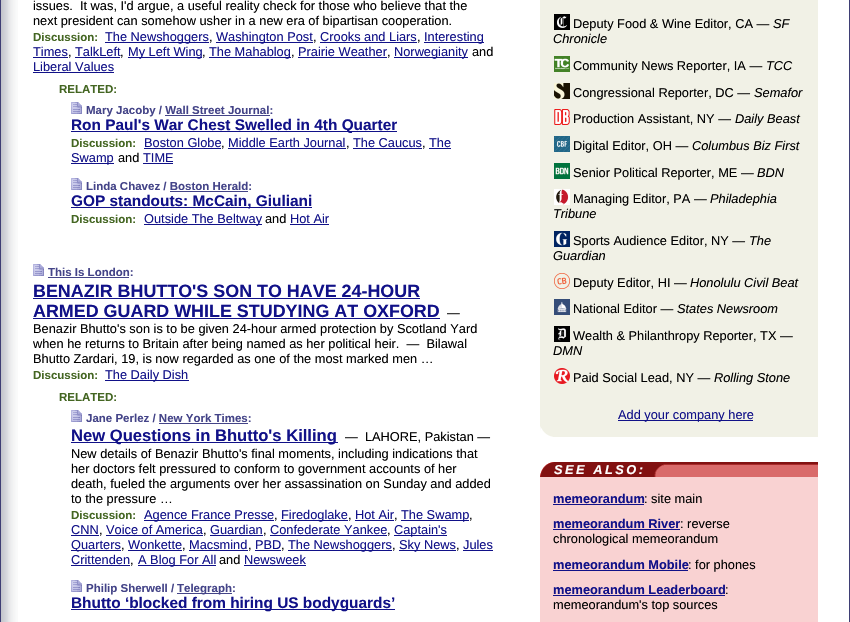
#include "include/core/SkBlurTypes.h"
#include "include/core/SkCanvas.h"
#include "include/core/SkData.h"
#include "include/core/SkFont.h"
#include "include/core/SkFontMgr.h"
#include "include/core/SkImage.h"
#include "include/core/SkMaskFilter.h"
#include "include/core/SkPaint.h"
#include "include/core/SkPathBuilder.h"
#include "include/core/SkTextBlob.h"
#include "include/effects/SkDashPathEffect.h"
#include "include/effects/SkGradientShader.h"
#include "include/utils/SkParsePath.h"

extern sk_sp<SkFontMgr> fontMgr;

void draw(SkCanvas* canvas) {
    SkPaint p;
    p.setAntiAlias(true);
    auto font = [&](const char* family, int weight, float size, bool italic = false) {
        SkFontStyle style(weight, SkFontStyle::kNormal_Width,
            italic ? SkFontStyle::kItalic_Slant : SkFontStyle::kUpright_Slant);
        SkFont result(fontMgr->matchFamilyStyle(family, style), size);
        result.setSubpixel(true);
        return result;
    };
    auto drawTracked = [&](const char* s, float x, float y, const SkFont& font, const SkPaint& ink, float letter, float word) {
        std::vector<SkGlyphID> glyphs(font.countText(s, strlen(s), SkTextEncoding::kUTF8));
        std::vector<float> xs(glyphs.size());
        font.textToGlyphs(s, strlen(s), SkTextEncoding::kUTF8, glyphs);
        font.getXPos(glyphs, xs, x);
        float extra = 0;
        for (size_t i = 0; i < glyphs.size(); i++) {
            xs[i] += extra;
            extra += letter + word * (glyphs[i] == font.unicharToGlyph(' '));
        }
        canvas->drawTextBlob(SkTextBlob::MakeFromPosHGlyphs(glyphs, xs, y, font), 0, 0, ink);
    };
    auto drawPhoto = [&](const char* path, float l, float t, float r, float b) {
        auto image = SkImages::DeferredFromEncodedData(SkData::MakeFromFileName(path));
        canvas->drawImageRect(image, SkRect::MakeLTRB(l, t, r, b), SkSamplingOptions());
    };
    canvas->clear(0xFFFFFFFF);
    p.setColor(0xFF3E3E74);
    canvas->drawRect(SkRect::MakeLTRB(849, 0, 850, 622), p);
    canvas->drawRect(SkRect::MakeLTRB(0, 0, 1, 622), p);
    drawPhoto("media/1.png", 1, 0, 18, 622);
    auto font1 = font("Liberation Sans", 400, 12.8f);
    p.setColor(0xFF000000);
    canvas->drawString("issues.  It was, I'd argue, a useful reality check for those who believe that the", 33, 10, font1, p);
    canvas->drawString("next president can somehow usher in a new era of bipartisan cooperation.", 33, 25, font1, p);
    auto font2 = font("Liberation Sans", 700, 11.5f);
    p.setColor(0xFF446622);
    canvas->drawString("Discussion:", 33, 41, font2, p);
    p.setColor(0xFF111188);
    canvas->drawRect(SkRect::MakeLTRB(105, 42, 209, 43), p);
    canvas->drawString("The Newshoggers", 105, 41, font1, p);
    p.setColor(0xFF000000);
    canvas->drawString(",", 209, 41, font1, p);
    p.setColor(0xFF111188);
    canvas->drawRect(SkRect::MakeLTRB(216, 42, 313, 43), p);
    canvas->drawString("Washington Post", 216, 41, font1, p);
    p.setColor(0xFF000000);
    canvas->drawString(",", 313, 41, font1, p);
    p.setColor(0xFF111188);
    canvas->drawString("Crooks and Liars", 320, 41, font1, p);
    canvas->drawRect(SkRect::MakeLTRB(320, 42, 417, 43), p);
    p.setColor(0xFF000000);
    canvas->drawString(",", 417, 41, font1, p);
    p.setColor(0xFF111188);
    canvas->drawRect(SkRect::MakeLTRB(424, 42, 484, 43), p);
    canvas->drawString("Interesting", 424, 41, font1, p);
    canvas->drawString("Times", 33, 56, font1, p);
    canvas->drawRect(SkRect::MakeLTRB(33, 57, 68, 58), p);
    p.setColor(0xFF000000);
    canvas->drawString(",", 68, 56, font1, p);
    p.setColor(0xFF111188);
    canvas->drawString("TalkLeft", 75, 56, font1, p);
    canvas->drawRect(SkRect::MakeLTRB(75, 57, 120, 58), p);
    p.setColor(0xFF000000);
    canvas->drawString(",", 120, 56, font1, p);
    p.setColor(0xFF111188);
    canvas->drawRect(SkRect::MakeLTRB(128, 57, 202, 58), p);
    canvas->drawString("My Left Wing", 128, 56, font1, p);
    p.setColor(0xFF000000);
    canvas->drawString(",", 202, 56, font1, p);
    p.setColor(0xFF111188);
    canvas->drawRect(SkRect::MakeLTRB(209, 57, 291, 58), p);
    canvas->drawString("The Mahablog", 209, 56, font1, p);
    p.setColor(0xFF000000);
    canvas->drawString(",", 291, 56, font1, p);
    p.setColor(0xFF111188);
    canvas->drawString("Prairie Weather", 298, 56, font1, p);
    canvas->drawRect(SkRect::MakeLTRB(298, 57, 387, 58), p);
    p.setColor(0xFF000000);
    canvas->drawString(",", 387, 56, font1, p);
    p.setColor(0xFF111188);
    canvas->drawRect(SkRect::MakeLTRB(394, 57, 468, 58), p);
    canvas->drawString("Norwegianity", 394, 56, font1, p);
    p.setColor(0xFF000000);
    canvas->drawString("and", 472, 56, font1, p);
    p.setColor(0xFF111188);
    canvas->drawString("Liberal Values", 33, 71, font1, p);
    canvas->drawRect(SkRect::MakeLTRB(33, 72, 114, 73), p);
    p.setColor(0xFF446622);
    canvas->drawString("RELATED:", 59, 93, font2, p);
    drawPhoto("media/2.png", 71, 102, 82, 114);
    p.setColor(0xFF444488);
    canvas->drawString("Mary Jacoby / Wall Street Journal:", 86, 114, font2, p);
    canvas->drawRect(SkRect::MakeLTRB(165, 115, 270, 116), p);
    p.setColor(0xFF111188);
    canvas->drawRect(SkRect::MakeLTRB(71, 131, 397, 132), p);
    auto font3 = font("Liberation Sans", 700, 15.4f);
    canvas->drawString("Ron Paul's War Chest Swelled in 4th Quarter", 71, 130, font3, p);
    p.setColor(0xFF446622);
    canvas->drawString("Discussion:", 71, 147, font2, p);
    p.setColor(0xFF111188);
    canvas->drawString("Boston Globe", 144, 147, font1, p);
    canvas->drawRect(SkRect::MakeLTRB(144, 148, 221, 149), p);
    p.setColor(0xFF000000);
    canvas->drawString(",", 221, 147, font1, p);
    p.setColor(0xFF111188);
    canvas->drawString("Middle Earth Journal", 228, 147, font1, p);
    canvas->drawRect(SkRect::MakeLTRB(228, 148, 346, 149), p);
    p.setColor(0xFF000000);
    canvas->drawString(",", 346, 147, font1, p);
    p.setColor(0xFF111188);
    canvas->drawString("The Caucus", 353, 147, font1, p);
    canvas->drawRect(SkRect::MakeLTRB(353, 148, 422, 149), p);
    p.setColor(0xFF000000);
    canvas->drawString(",", 422, 147, font1, p);
    p.setColor(0xFF111188);
    canvas->drawString("The", 429, 147, font1, p);
    canvas->drawRect(SkRect::MakeLTRB(429, 148, 451, 149), p);
    canvas->drawRect(SkRect::MakeLTRB(71, 163, 114, 164), p);
    canvas->drawString("Swamp", 71, 162, font1, p);
    p.setColor(0xFF000000);
    canvas->drawString("and", 118, 162, font1, p);
    p.setColor(0xFF111188);
    canvas->drawString("TIME", 143, 162, font1, p);
    canvas->drawRect(SkRect::MakeLTRB(143, 163, 173, 164), p);
    drawPhoto("media/2.png", 71, 178, 82, 190);
    p.setColor(0xFF444488);
    canvas->drawString("Linda Chavez / Boston Herald:", 86, 190, font2, p);
    canvas->drawRect(SkRect::MakeLTRB(170, 191, 248, 192), p);
    p.setColor(0xFF111188);
    canvas->drawRect(SkRect::MakeLTRB(71, 207, 312, 208), p);
    canvas->drawString("GOP standouts: McCain, Giuliani", 71, 206, font3, p);
    p.setColor(0xFF446622);
    canvas->drawString("Discussion:", 71, 223, font2, p);
    p.setColor(0xFF111188);
    canvas->drawRect(SkRect::MakeLTRB(144, 224, 262, 225), p);
    canvas->drawString("Outside The Beltway", 144, 223, font1, p);
    p.setColor(0xFF000000);
    canvas->drawString("and", 265, 223, font1, p);
    p.setColor(0xFF111188);
    canvas->drawString("Hot Air", 290, 223, font1, p);
    canvas->drawRect(SkRect::MakeLTRB(290, 224, 329, 225), p);
    drawPhoto("media/2.png", 33, 264, 44, 276);
    p.setColor(0xFF444488);
    canvas->drawString("This Is London:", 48, 276, font2, p);
    canvas->drawRect(SkRect::MakeLTRB(48, 277, 129, 278), p);
    auto font4 = font("Liberation Sans", 700, 17.9f);
    p.setColor(0xFF111188);
    canvas->drawString("BENAZIR BHUTTO'S SON TO HAVE 24-HOUR", 33, 297, font4, p);
    canvas->drawRect(SkRect::MakeLTRB(33, 298, 420, 299), p);
    canvas->drawString("ARMED GUARD WHILE STUDYING AT OXFORD", 33, 317, font4, p);
    canvas->drawRect(SkRect::MakeLTRB(33, 318, 440, 319), p);
    p.setColor(0xFF000000);
    {
        const struct { const char* s; float x, y; } items[] = {
            {"—", 447, 317},
            {"Benazir Bhutto's son is to be given 24-hour armed protection by Scotland Yard", 33, 333},
            {"when he returns to Britain after being named as her political heir.  —  Bilawal", 33, 348},
            {"Bhutto Zardari, 19, is now regarded as one of the most marked men …", 33, 363},
        };
        for (auto [s, x, y] : items) {
            canvas->drawString(s, x, y, font1, p);
        }
    }
    p.setColor(0xFF446622);
    canvas->drawString("Discussion:", 33, 379, font2, p);
    p.setColor(0xFF111188);
    canvas->drawRect(SkRect::MakeLTRB(105, 380, 189, 381), p);
    canvas->drawString("The Daily Dish", 105, 379, font1, p);
    p.setColor(0xFF446622);
    canvas->drawString("RELATED:", 59, 401, font2, p);
    drawPhoto("media/2.png", 71, 410, 82, 422);
    p.setColor(0xFF444488);
    canvas->drawString("Jane Perlez / New York Times:", 86, 422, font2, p);
    canvas->drawRect(SkRect::MakeLTRB(159, 423, 248, 424), p);
    p.setColor(0xFF111188);
    canvas->drawRect(SkRect::MakeLTRB(71, 442, 338, 443), p);
    auto font5 = font("Liberation Sans", 700, 16.6f);
    canvas->drawString("New Questions in Bhutto's Killing", 71, 441, font5, p);
    p.setColor(0xFF000000);
    {
        const struct { const char* s; float x, y; } items[] = {
            {"—  LAHORE, Pakistan —", 345, 441},
            {"New details of Benazir Bhutto's final moments, including indications that", 71, 458},
            {"her doctors felt pressured to conform to government accounts of her", 71, 473},
            {"death, fueled the arguments over her assassination on Sunday and added", 71, 488},
            {"to the pressure …", 71, 503},
        };
        for (auto [s, x, y] : items) {
            canvas->drawString(s, x, y, font1, p);
        }
    }
    p.setColor(0xFF446622);
    canvas->drawString("Discussion:", 71, 519, font2, p);
    p.setColor(0xFF111188);
    canvas->drawRect(SkRect::MakeLTRB(144, 520, 274, 521), p);
    canvas->drawString("Agence France Presse", 144, 519, font1, p);
    p.setColor(0xFF000000);
    canvas->drawString(",", 274, 519, font1, p);
    p.setColor(0xFF111188);
    canvas->drawRect(SkRect::MakeLTRB(281, 520, 348, 521), p);
    canvas->drawString("Firedoglake", 281, 519, font1, p);
    p.setColor(0xFF000000);
    canvas->drawString(",", 348, 519, font1, p);
    p.setColor(0xFF111188);
    canvas->drawString("Hot Air", 355, 519, font1, p);
    canvas->drawRect(SkRect::MakeLTRB(355, 520, 394, 521), p);
    p.setColor(0xFF000000);
    canvas->drawString(",", 394, 519, font1, p);
    p.setColor(0xFF111188);
    canvas->drawRect(SkRect::MakeLTRB(401, 520, 469, 521), p);
    canvas->drawString("The Swamp", 401, 519, font1, p);
    p.setColor(0xFF000000);
    canvas->drawString(",", 469, 519, font1, p);
    p.setColor(0xFF111188);
    canvas->drawString("CNN", 71, 534, font1, p);
    canvas->drawRect(SkRect::MakeLTRB(71, 535, 99, 536), p);
    p.setColor(0xFF000000);
    canvas->drawString(",", 99, 534, font1, p);
    p.setColor(0xFF111188);
    canvas->drawString("Voice of America", 106, 534, font1, p);
    canvas->drawRect(SkRect::MakeLTRB(106, 535, 203, 536), p);
    p.setColor(0xFF000000);
    canvas->drawString(",", 203, 534, font1, p);
    p.setColor(0xFF111188);
    canvas->drawString("Guardian", 210, 534, font1, p);
    canvas->drawRect(SkRect::MakeLTRB(210, 535, 263, 536), p);
    p.setColor(0xFF000000);
    canvas->drawString(",", 263, 534, font1, p);
    p.setColor(0xFF111188);
    canvas->drawString("Confederate Yankee", 270, 534, font1, p);
    canvas->drawRect(SkRect::MakeLTRB(270, 535, 387, 536), p);
    p.setColor(0xFF000000);
    canvas->drawString(",", 387, 534, font1, p);
    p.setColor(0xFF111188);
    canvas->drawRect(SkRect::MakeLTRB(394, 535, 447, 536), p);
    canvas->drawString("Captain's", 394, 534, font1, p);
    canvas->drawRect(SkRect::MakeLTRB(71, 550, 121, 551), p);
    canvas->drawString("Quarters", 71, 549, font1, p);
    p.setColor(0xFF000000);
    canvas->drawString(",", 121, 549, font1, p);
    p.setColor(0xFF111188);
    canvas->drawString("Wonkette", 128, 549, font1, p);
    canvas->drawRect(SkRect::MakeLTRB(128, 550, 182, 551), p);
    p.setColor(0xFF000000);
    canvas->drawString(",", 182, 549, font1, p);
    p.setColor(0xFF111188);
    canvas->drawString("Macsmind", 189, 549, font1, p);
    canvas->drawRect(SkRect::MakeLTRB(189, 550, 248, 551), p);
    p.setColor(0xFF000000);
    canvas->drawString(",", 248, 549, font1, p);
    p.setColor(0xFF111188);
    canvas->drawString("PBD", 255, 549, font1, p);
    canvas->drawRect(SkRect::MakeLTRB(255, 550, 281, 551), p);
    p.setColor(0xFF000000);
    canvas->drawString(",", 281, 549, font1, p);
    p.setColor(0xFF111188);
    canvas->drawRect(SkRect::MakeLTRB(288, 550, 392, 551), p);
    canvas->drawString("The Newshoggers", 288, 549, font1, p);
    p.setColor(0xFF000000);
    canvas->drawString(",", 392, 549, font1, p);
    p.setColor(0xFF111188);
    canvas->drawRect(SkRect::MakeLTRB(399, 550, 456, 551), p);
    canvas->drawString("Sky News", 399, 549, font1, p);
    p.setColor(0xFF000000);
    canvas->drawString(",", 456, 549, font1, p);
    p.setColor(0xFF111188);
    canvas->drawString("Jules", 463, 549, font1, p);
    canvas->drawRect(SkRect::MakeLTRB(463, 550, 493, 551), p);
    canvas->drawString("Crittenden", 71, 564, font1, p);
    canvas->drawRect(SkRect::MakeLTRB(71, 565, 130, 566), p);
    p.setColor(0xFF000000);
    canvas->drawString(",", 130, 564, font1, p);
    p.setColor(0xFF111188);
    canvas->drawRect(SkRect::MakeLTRB(138, 565, 216, 566), p);
    canvas->drawString("A Blog For All", 138, 564, font1, p);
    p.setColor(0xFF000000);
    canvas->drawString("and", 219, 564, font1, p);
    p.setColor(0xFF111188);
    canvas->drawString("Newsweek", 244, 564, font1, p);
    canvas->drawRect(SkRect::MakeLTRB(244, 565, 306, 566), p);
    drawPhoto("media/2.png", 71, 580, 82, 592);
    p.setColor(0xFF444488);
    canvas->drawString("Philip Sherwell /", 86, 592, font2, p);
    canvas->drawRect(SkRect::MakeLTRB(177, 593, 232, 594), p);
    canvas->drawString("Telegraph:", 177, 592, font2, p);
    p.setColor(0xFF111188);
    canvas->drawRect(SkRect::MakeLTRB(71, 609, 395, 610), p);
    canvas->drawString("Bhutto ‘blocked from hiring US bodyguards’", 71, 608, font3, p);
    p.setColor(0xFFF1F1E6);
    canvas->drawRect(SkRect::MakeLTRB(540, 0, 818, 422), p);
    drawPhoto("media/3.png", 554, 14, 570, 30);
    p.setColor(0xFF000000);
    canvas->drawString("Deputy Food & Wine Editor, CA —", 573, 28, font1, p);
    auto font6 = font("Liberation Sans", 400, 12.8f, true);
    canvas->drawString("SF", 773, 28, font6, p);
    canvas->drawString("Chronicle", 553, 43, font6, p);
    drawPhoto("media/4.png", 554, 56, 570, 72);
    canvas->drawString("Community News Reporter, IA —", 573, 70, font1, p);
    canvas->drawString("TCC", 766, 70, font6, p);
    drawPhoto("media/5.png", 554, 83, 570, 99);
    canvas->drawString("Congressional Reporter, DC —", 573, 97, font1, p);
    canvas->drawString("Semafor", 754, 97, font6, p);
    drawPhoto("media/6.png", 554, 109, 570, 125);
    canvas->drawString("Production Assistant, NY —", 573, 123, font1, p);
    canvas->drawString("Daily Beast", 735, 123, font6, p);
    drawPhoto("media/7.png", 554, 136, 570, 152);
    canvas->drawString("Digital Editor, OH —", 573, 150, font1, p);
    canvas->drawString("Columbus Biz First", 692, 150, font6, p);
    drawPhoto("media/8.png", 554, 163, 570, 179);
    canvas->drawString("Senior Political Reporter, ME —", 573, 177, font1, p);
    canvas->drawString("BDN", 757, 177, font6, p);
    drawPhoto("media/9.png", 554, 189, 570, 205);
    canvas->drawString("Managing Editor, PA —", 573, 203, font1, p);
    canvas->drawString("Philadephia", 710, 203, font6, p);
    canvas->drawString("Tribune", 553, 218, font6, p);
    drawPhoto("media/10.png", 554, 231, 570, 247);
    canvas->drawString("Sports Audience Editor, NY —", 573, 245, font1, p);
    canvas->drawString("The", 749, 245, font6, p);
    canvas->drawString("Guardian", 553, 260, font6, p);
    drawPhoto("media/11.png", 554, 273, 570, 289);
    canvas->drawString("Deputy Editor, HI —", 573, 287, font1, p);
    canvas->drawString("Honolulu Civil Beat", 690, 287, font6, p);
    drawPhoto("media/12.png", 554, 299, 570, 315);
    canvas->drawString("National Editor —", 573, 313, font1, p);
    canvas->drawString("States Newsroom", 677, 313, font6, p);
    drawPhoto("media/13.png", 554, 326, 570, 342);
    canvas->drawString("Wealth & Philanthropy Reporter, TX —", 573, 340, font1, p);
    canvas->drawString("DMN", 553, 355, font6, p);
    drawPhoto("media/14.png", 554, 368, 570, 384);
    canvas->drawString("Paid Social Lead, NY —", 573, 382, font1, p);
    canvas->drawString("Rolling Stone", 714, 382, font6, p);
    p.setColor(0xFF111188);
    canvas->drawRect(SkRect::MakeLTRB(618, 420, 753, 421), p);
    canvas->drawString("Add your company here", 618, 419, font1, p);
    drawPhoto("media/15.png", 540, 422, 818, 437);
    drawPhoto("media/16.png", 646, 462, 818, 477);
    drawPhoto("media/17.png", 540, 462, 554, 477);
    p.setColor(0xFF821111);
    canvas->drawRect(SkRect::MakeLTRB(554, 462, 646, 477), p);
    auto font7 = font("Liberation Sans", 700, 12.8f, true);
    p.setColor(0xFFFFFFFF);
    drawTracked("SEE ALSO:", 554, 474, font7, p, 2.5f, 0);
    drawPhoto("media/18.png", 646, 464, 664, 477);
    p.setColor(0xFFF9D2D2);
    canvas->drawRect(SkRect::MakeLTRB(540, 477, 818, 622), p);
    auto font8 = font("Liberation Sans", 700, 12.8f);
    p.setColor(0xFF111188);
    canvas->drawString("memeorandum", 553, 503, font8, p);
    canvas->drawRect(SkRect::MakeLTRB(553, 504, 644, 505), p);
    p.setColor(0xFF000000);
    canvas->drawString(": site main", 644, 503, font1, p);
    p.setColor(0xFF111188);
    canvas->drawString("memeorandum River", 553, 528, font8, p);
    canvas->drawRect(SkRect::MakeLTRB(553, 529, 680, 530), p);
    p.setColor(0xFF000000);
    canvas->drawString(": reverse", 680, 528, font1, p);
    canvas->drawString("chronological memeorandum", 553, 543, font1, p);
    p.setColor(0xFF111188);
    canvas->drawString("memeorandum Mobile", 553, 569, font8, p);
    canvas->drawRect(SkRect::MakeLTRB(553, 570, 688, 571), p);
    p.setColor(0xFF000000);
    canvas->drawString(": for phones", 688, 569, font1, p);
    p.setColor(0xFF111188);
    canvas->drawString("memeorandum Leaderboard", 553, 594, font8, p);
    canvas->drawRect(SkRect::MakeLTRB(553, 595, 725, 596), p);
    p.setColor(0xFF000000);
    canvas->drawString(":", 725, 594, font1, p);
    canvas->drawString("memeorandum's top sources", 553, 609, font1, p);
}
